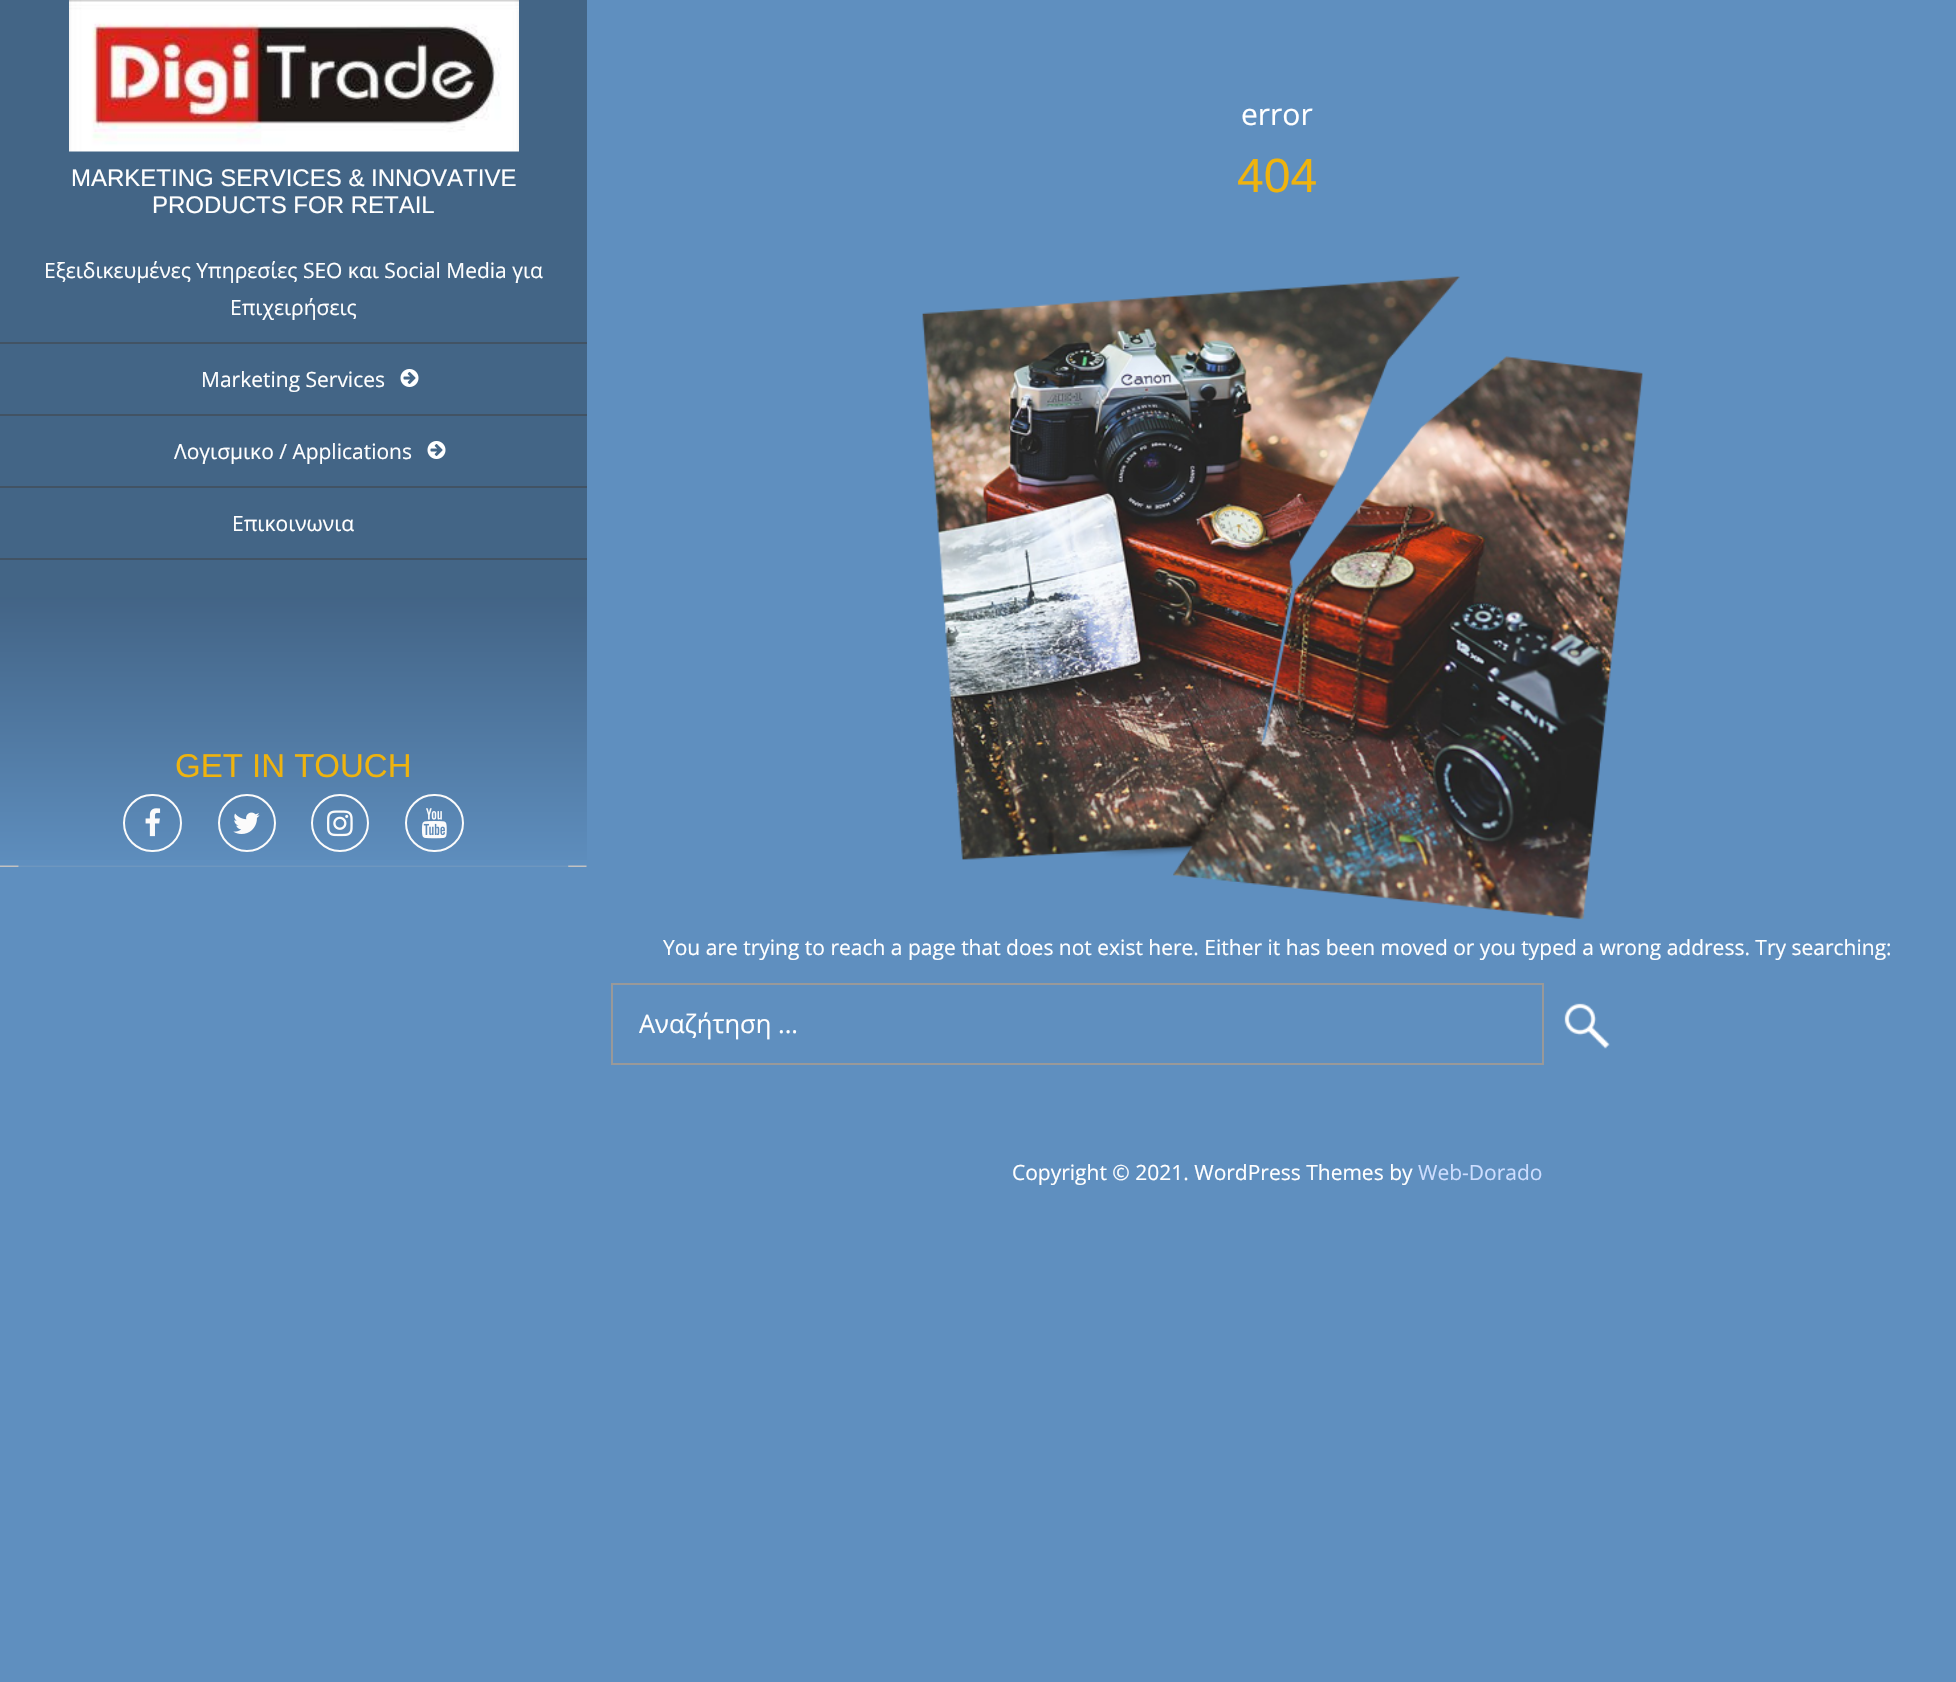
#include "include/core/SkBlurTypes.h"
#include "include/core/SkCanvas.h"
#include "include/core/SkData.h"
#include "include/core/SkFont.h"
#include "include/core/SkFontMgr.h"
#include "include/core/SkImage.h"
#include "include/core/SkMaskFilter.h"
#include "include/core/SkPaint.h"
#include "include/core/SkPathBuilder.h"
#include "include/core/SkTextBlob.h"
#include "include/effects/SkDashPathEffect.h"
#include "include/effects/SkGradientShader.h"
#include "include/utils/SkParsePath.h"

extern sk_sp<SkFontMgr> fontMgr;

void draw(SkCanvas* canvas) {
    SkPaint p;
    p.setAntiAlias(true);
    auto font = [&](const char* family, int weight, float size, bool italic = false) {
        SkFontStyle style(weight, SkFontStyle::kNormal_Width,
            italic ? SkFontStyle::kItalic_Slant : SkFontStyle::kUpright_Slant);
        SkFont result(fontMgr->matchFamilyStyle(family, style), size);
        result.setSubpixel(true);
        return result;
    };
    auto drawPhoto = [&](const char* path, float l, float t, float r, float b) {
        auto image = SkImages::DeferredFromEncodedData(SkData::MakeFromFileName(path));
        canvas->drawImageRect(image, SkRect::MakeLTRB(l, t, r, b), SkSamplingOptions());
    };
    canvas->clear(0xFF5F8FBF);
    p.setColor(0xFF436586);
    canvas->drawRect(SkRect::MakeLTRB(0, 0, 587, 597), p);
    drawPhoto("media/1.png", 69, 0, 519, 152);
    auto font1 = font("Liberation Sans", 400, 24);
    p.setColor(0xFFFFFFFF);
    canvas->drawString("MARKETING SERVICES & INNOVATIVE", 71, 186, font1, p);
    canvas->drawString("PRODUCTS FOR RETAIL", 152, 213, font1, p);
    p.setColor(0xFF425364);
    canvas->drawRect(SkRect::MakeLTRB(0, 342, 587, 344), p);
    auto font2 = font("Open Sans", 400, 21);
    p.setColor(0xFFFFFFFF);
    canvas->drawString("Εξειδικευμένες Υπηρεσίες SEO και Social Media για", 44, 278, font2, p);
    canvas->drawString("Επιχειρήσεις", 230, 315, font2, p);
    p.setColor(0xFF425364);
    canvas->drawRect(SkRect::MakeLTRB(0, 414, 587, 416), p);
    p.setColor(0xFFFFFFFF);
    canvas->drawString("Μarketing Services", 201, 387, font2, p);
    drawPhoto("media/2.png", 400, 369, 419, 387);
    p.setColor(0xFF425364);
    canvas->drawRect(SkRect::MakeLTRB(0, 486, 587, 488), p);
    p.setColor(0xFFFFFFFF);
    canvas->drawString("Λογισμικο / Applications", 174, 459, font2, p);
    drawPhoto("media/2.png", 427, 441, 446, 459);
    p.setColor(0xFF425364);
    canvas->drawRect(SkRect::MakeLTRB(0, 558, 587, 560), p);
    p.setColor(0xFFFFFFFF);
    canvas->drawString("Eπικοινωνια", 232, 531, font2, p);
    {
        const SkColor colors[] = {0xFF436486, 0xFF5E8EBE};
        const float stops[] = {0, 1};
        const SkPoint ends[] = {{293, 597}, {293, 867}};
        p.setShader(SkGradientShader::MakeLinear(ends, colors, stops, 2, SkTileMode::kClamp));
        p.setAlpha(255);
    }
    canvas->drawRect(SkRect::MakeLTRB(0, 597, 587, 860), p);
    auto font3 = font("Liberation Sans", 400, 33);
    p.setShader(nullptr);
    p.setColor(0xFFEFB30E);
    canvas->drawString("GET IN TOUCH", 175, 777, font3, p);
    p.setStyle(SkPaint::kStroke_Style);
    p.setStrokeWidth(2);
    p.setColor(0xFFFBFBFB);
    canvas->drawRoundRect(SkRect::MakeLTRB(124, 795, 181, 851), 28, 28, p);
    drawPhoto("media/3.png", 145, 808, 161, 837);
    canvas->drawCircle(247, 823, 28, p);
    drawPhoto("media/4.png", 233, 812, 260, 834);
    canvas->drawCircle(340, 823, 28, p);
    drawPhoto("media/5.png", 327, 810, 353, 837);
    canvas->drawRoundRect(SkRect::MakeLTRB(406, 795, 463, 851), 28, 28, p);
    drawPhoto("media/6.png", 421, 808, 447, 839);
    drawPhoto("media/7.png", 0, 865, 587, 867);
    auto font4 = font("Open Sans", 400, 30);
    p.setStyle(SkPaint::kFill_Style);
    p.setColor(0xFFFFFFFF);
    canvas->drawString("error", 1241, 125, font4, p);
    auto font5 = font("Liberation Sans", 400, 48);
    p.setColor(0xFFEFB30E);
    canvas->drawString("404", 1237, 192, font5, p);
    drawPhoto("media/8.png", 922, 276, 1643, 920);
    p.setColor(0xFFFFFFFF);
    canvas->drawString("You are trying to reach a page that does not exist here. Either it has been moved or you typed a wrong address. Try searching:", 663, 955, font2, p);
    p.setStyle(SkPaint::kStroke_Style);
    p.setColor(0xFF999999);
    canvas->drawRect(SkRect::MakeLTRB(612, 984, 1543, 1064), p);
    auto font6 = font("Open Sans", 400, 25.5f);
    p.setStyle(SkPaint::kFill_Style);
    p.setColor(0xFFFFFFFF);
    canvas->drawString("Αναζήτηση ...", 639, 1033, font6, p);
    drawPhoto("media/9.png", 1564, 1003, 1610, 1049);
    canvas->drawString("Copyright © 2021. WordPress Themes by", 1012, 1180, font2, p);
    p.setColor(0xFFCCDDFF);
    canvas->drawString("Web-Dorado", 1418, 1180, font2, p);
}
